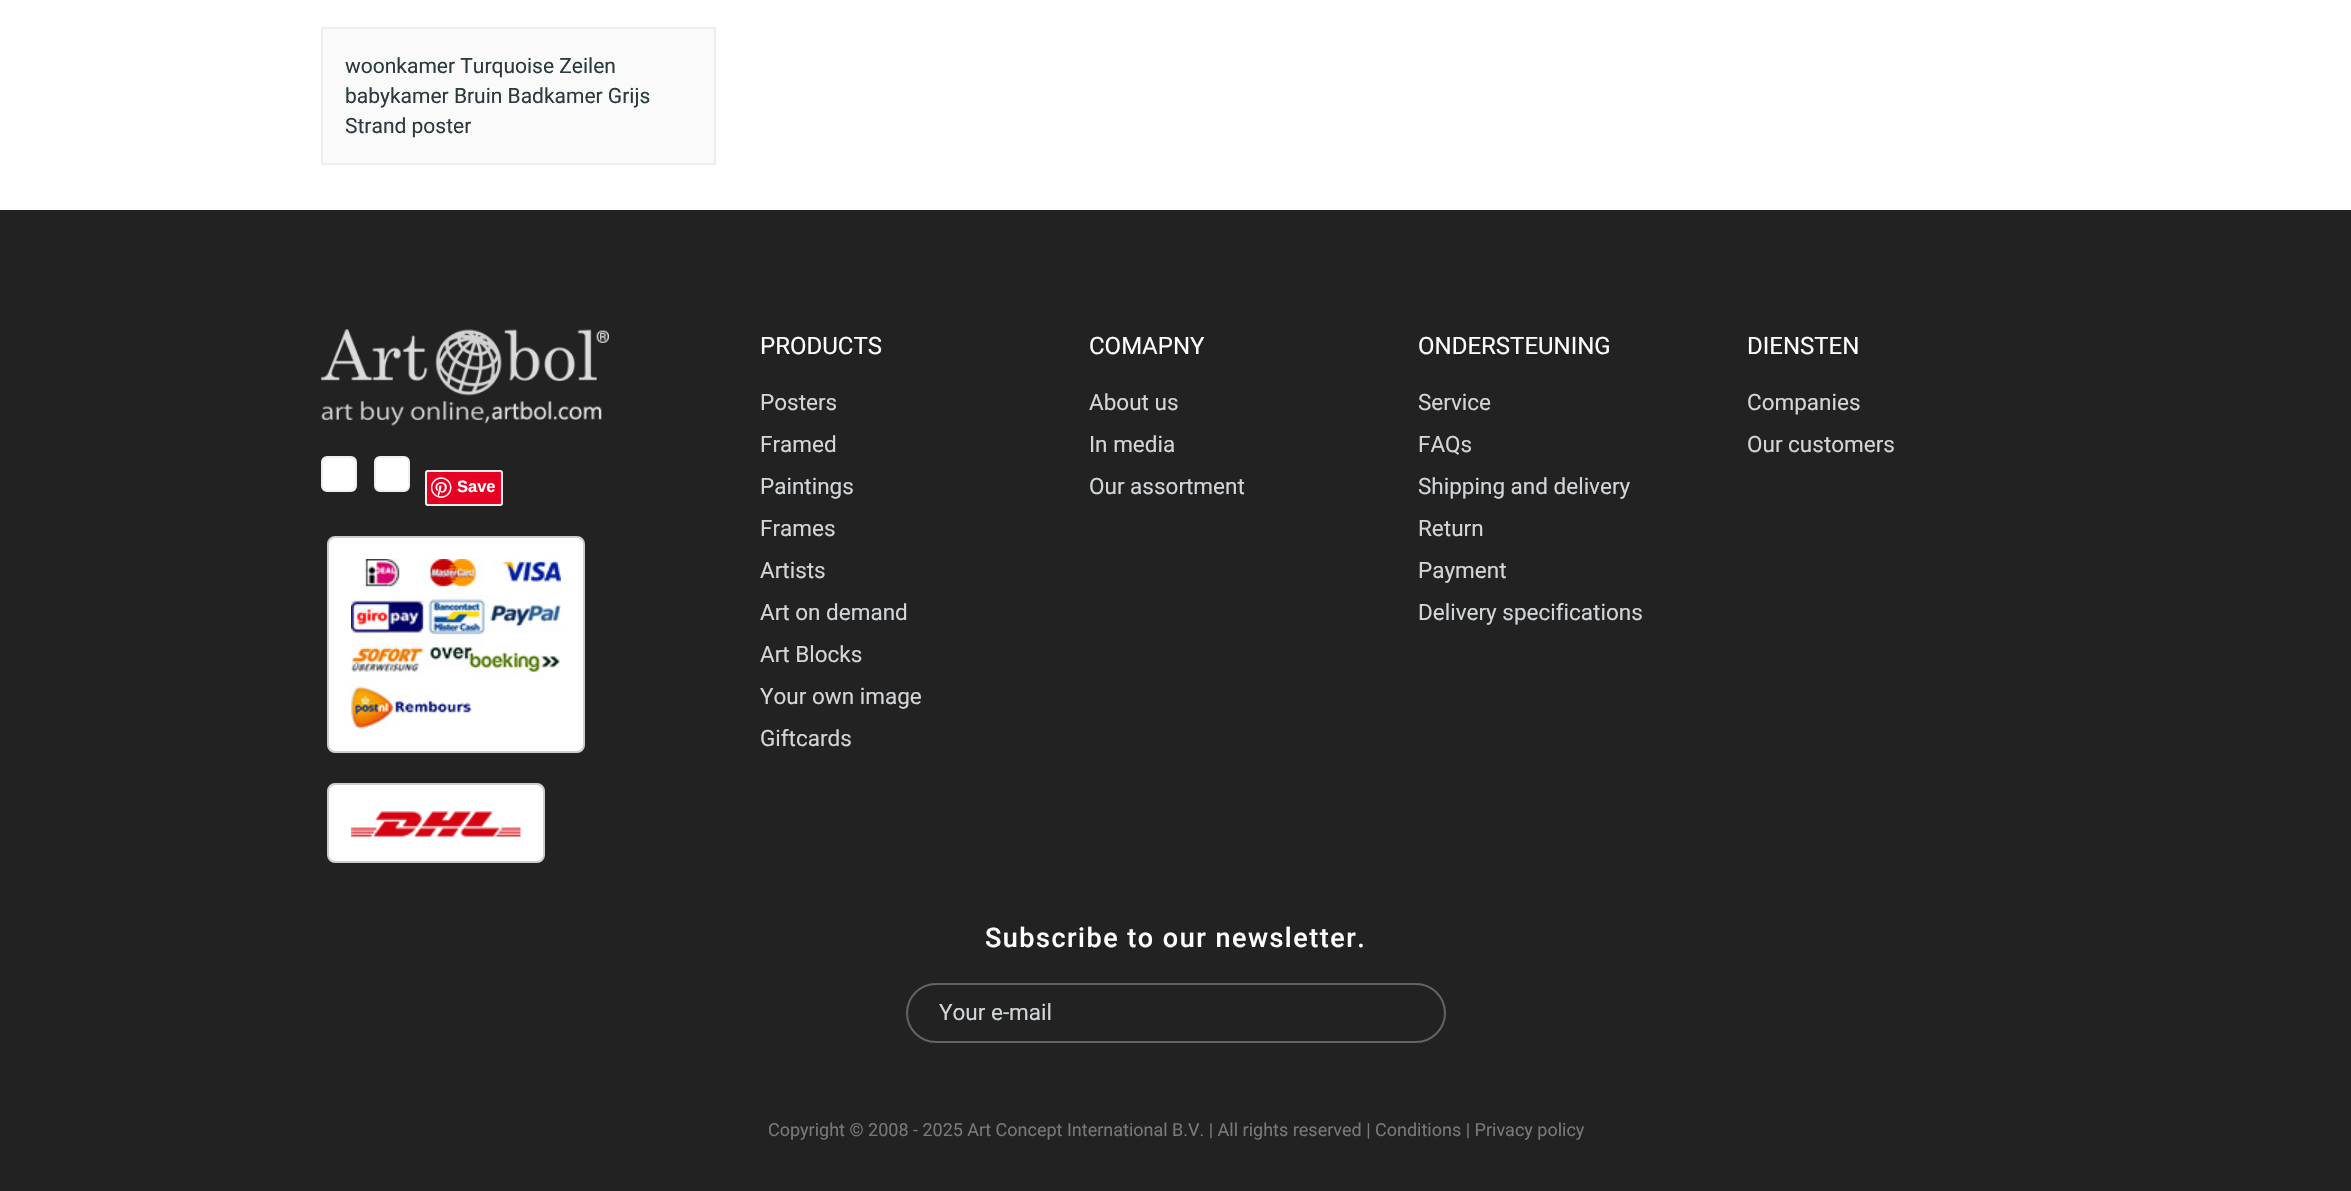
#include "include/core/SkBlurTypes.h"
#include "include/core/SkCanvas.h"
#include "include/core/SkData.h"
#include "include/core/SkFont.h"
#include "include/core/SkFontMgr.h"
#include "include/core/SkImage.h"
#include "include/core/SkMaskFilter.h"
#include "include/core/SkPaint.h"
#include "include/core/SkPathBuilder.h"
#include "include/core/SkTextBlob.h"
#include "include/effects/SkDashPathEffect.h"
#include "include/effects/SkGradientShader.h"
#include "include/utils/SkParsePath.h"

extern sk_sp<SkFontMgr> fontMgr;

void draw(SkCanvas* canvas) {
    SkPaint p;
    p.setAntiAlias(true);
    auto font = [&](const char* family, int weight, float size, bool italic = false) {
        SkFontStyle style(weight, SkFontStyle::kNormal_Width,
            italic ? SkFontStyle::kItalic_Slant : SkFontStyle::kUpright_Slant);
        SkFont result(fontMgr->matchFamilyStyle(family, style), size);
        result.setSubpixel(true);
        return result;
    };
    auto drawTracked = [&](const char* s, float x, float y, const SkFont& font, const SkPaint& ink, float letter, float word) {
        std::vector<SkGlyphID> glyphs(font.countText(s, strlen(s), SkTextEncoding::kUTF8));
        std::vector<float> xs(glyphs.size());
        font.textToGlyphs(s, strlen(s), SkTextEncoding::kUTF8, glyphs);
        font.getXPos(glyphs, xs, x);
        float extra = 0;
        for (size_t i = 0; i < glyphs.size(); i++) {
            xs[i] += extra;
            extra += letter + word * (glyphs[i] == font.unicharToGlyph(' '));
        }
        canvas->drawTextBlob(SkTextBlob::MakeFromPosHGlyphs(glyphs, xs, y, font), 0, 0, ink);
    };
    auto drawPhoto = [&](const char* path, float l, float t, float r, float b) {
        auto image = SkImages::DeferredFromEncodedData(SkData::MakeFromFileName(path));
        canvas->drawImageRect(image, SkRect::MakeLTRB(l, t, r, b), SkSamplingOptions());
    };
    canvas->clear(0xFFFFFFFF);
    p.setColor(0xFFFAFAFA);
    canvas->drawRect(SkRect::MakeLTRB(322, 28, 715, 164), p);
    p.setStyle(SkPaint::kStroke_Style);
    p.setStrokeWidth(2);
    p.setColor(0xFFEEEEEE);
    canvas->drawRect(SkRect::MakeLTRB(322, 28, 715, 164), p);
    auto font1 = font("Roboto", 400, 21);
    p.setStyle(SkPaint::kFill_Style);
    p.setColor(0xFF2A3A3D);
    {
        const struct { const char* s; float x, y; } items[] = {
            {"woonkamer Turquoise Zeilen", 345, 73},
            {"babykamer Bruin Badkamer Grijs", 345, 103},
            {"Strand poster", 345, 133},
        };
        for (auto [s, x, y] : items) {
            canvas->drawString(s, x, y, font1, p);
        }
    }
    p.setColor(0xFF222222);
    canvas->drawRect(SkRect::MakeLTRB(0, 210, 2351, 1191), p);
    drawPhoto("media/1.png", 321, 329, 609, 426);
    p.setColor(0xFFFFFFFF);
    canvas->drawRoundRect(SkRect::MakeLTRB(322, 457, 356, 491), 5, 5, p);
    p.setStyle(SkPaint::kStroke_Style);
    p.setColor(0xFFEEEEEE);
    canvas->drawRoundRect(SkRect::MakeLTRB(322, 457, 356, 491), 5, 5, p);
    p.setStyle(SkPaint::kFill_Style);
    p.setColor(0xFFFFFFFF);
    canvas->drawRoundRect(SkRect::MakeLTRB(375, 457, 409, 491), 5, 5, p);
    p.setStyle(SkPaint::kStroke_Style);
    p.setColor(0xFFEEEEEE);
    canvas->drawRoundRect(SkRect::MakeLTRB(375, 457, 409, 491), 5, 5, p);
    p.setStyle(SkPaint::kFill_Style);
    p.setColor(0xFFE60023);
    canvas->drawRoundRect(SkRect::MakeLTRB(425, 470, 503, 506), 3, 3, p);
    drawPhoto("media/2.png", 431, 477, 452, 498);
    p.setStyle(SkPaint::kStroke_Style);
    p.setColor(0xFFEEEEEE);
    canvas->drawRoundRect(SkRect::MakeLTRB(426, 471, 502, 505), 2, 2, p);
    auto font2 = font("Liberation Sans", 700, 16.5f);
    p.setStyle(SkPaint::kFill_Style);
    p.setColor(0xFFFFFFFF);
    canvas->drawString("Save", 457, 492, font2, p);
    canvas->drawRoundRect(SkRect::MakeLTRB(328, 537, 584, 752), 7, 7, p);
    p.setStyle(SkPaint::kStroke_Style);
    p.setColor(0xFFCCCCCC);
    canvas->drawRoundRect(SkRect::MakeLTRB(328, 537, 584, 752), 7, 7, p);
    drawPhoto("media/3.png", 351, 559, 561, 729);
    p.setStyle(SkPaint::kFill_Style);
    p.setColor(0xFFFFFFFF);
    canvas->drawRoundRect(SkRect::MakeLTRB(328, 784, 544, 862), 7, 7, p);
    p.setStyle(SkPaint::kStroke_Style);
    p.setColor(0xFFCCCCCC);
    canvas->drawRoundRect(SkRect::MakeLTRB(328, 784, 544, 862), 7, 7, p);
    drawPhoto("media/4.png", 351, 811, 521, 837);
    auto font3 = font("Roboto", 400, 24);
    p.setStyle(SkPaint::kFill_Style);
    p.setColor(0xFFFFFFFF);
    canvas->drawString("PRODUCTS", 760, 354, font3, p);
    auto font4 = font("Roboto", 400, 22.5f);
    p.setColor(0xFFD2D6D9);
    {
        const struct { const char* s; float x, y; } items[] = {
            {"Posters", 760, 410},
            {"Framed", 760, 452},
            {"Paintings", 760, 494},
            {"Frames", 760, 536},
            {"Artists", 760, 578},
            {"Art on demand", 760, 620},
            {"Art Blocks", 760, 662},
            {"Your own image", 760, 704},
            {"Giftcards", 760, 746},
        };
        for (auto [s, x, y] : items) {
            canvas->drawString(s, x, y, font4, p);
        }
    }
    p.setColor(0xFFFFFFFF);
    canvas->drawString("COMAPNY", 1089, 354, font3, p);
    p.setColor(0xFFD2D6D9);
    {
        const struct { const char* s; float x, y; } items[] = {
            {"About us", 1089, 410},
            {"In media", 1089, 452},
            {"Our assortment", 1089, 494},
        };
        for (auto [s, x, y] : items) {
            canvas->drawString(s, x, y, font4, p);
        }
    }
    p.setColor(0xFFFFFFFF);
    canvas->drawString("ONDERSTEUNING", 1418, 354, font3, p);
    p.setColor(0xFFD2D6D9);
    {
        const struct { const char* s; float x, y; } items[] = {
            {"Service", 1418, 410},
            {"FAQs", 1418, 452},
            {"Shipping and delivery", 1418, 494},
            {"Return", 1418, 536},
            {"Payment", 1418, 578},
            {"Delivery specifications", 1418, 620},
        };
        for (auto [s, x, y] : items) {
            canvas->drawString(s, x, y, font4, p);
        }
    }
    p.setColor(0xFFFFFFFF);
    canvas->drawString("DIENSTEN", 1747, 354, font3, p);
    p.setColor(0xFFD2D6D9);
    canvas->drawString("Companies", 1747, 410, font4, p);
    canvas->drawString("Our customers", 1747, 452, font4, p);
    auto font5 = font("Roboto", 500, 27);
    p.setColor(0xFFFFFFFF);
    drawTracked("Subscribe to our newsletter.", 985, 947, font5, p, 1.5f, 0);
    p.setStyle(SkPaint::kStroke_Style);
    p.setColor(0xFF636363);
    canvas->drawRoundRect(SkRect::MakeLTRB(907, 984, 1445, 1042), 29, 29, p);
    p.setStyle(SkPaint::kFill_Style);
    p.setColor(0xFFD2D6D9);
    canvas->drawString("Your e-mail", 939, 1020, font4, p);
    auto font6 = font("Roboto", 400, 18);
    p.setColor(0xFF787878);
    canvas->drawString("Copyright © 2008 - 2025 Art Concept International B.V. | All rights reserved | Conditions | Privacy policy", 768, 1136, font6, p);
}
